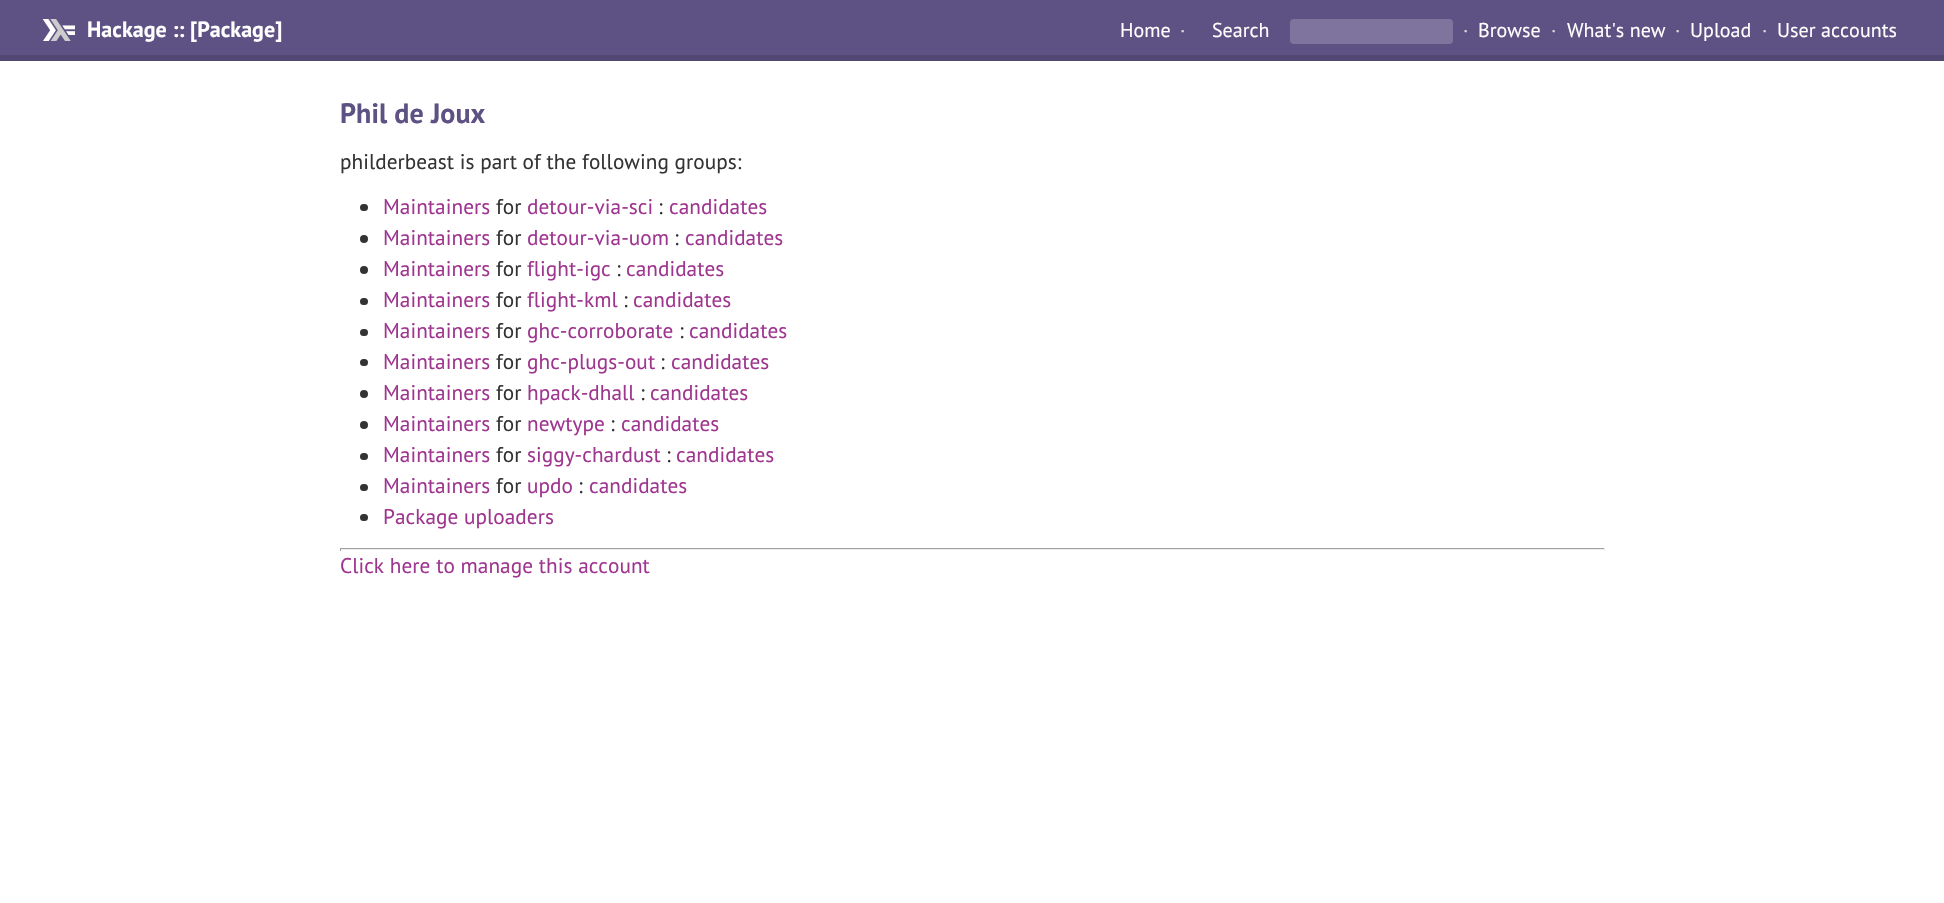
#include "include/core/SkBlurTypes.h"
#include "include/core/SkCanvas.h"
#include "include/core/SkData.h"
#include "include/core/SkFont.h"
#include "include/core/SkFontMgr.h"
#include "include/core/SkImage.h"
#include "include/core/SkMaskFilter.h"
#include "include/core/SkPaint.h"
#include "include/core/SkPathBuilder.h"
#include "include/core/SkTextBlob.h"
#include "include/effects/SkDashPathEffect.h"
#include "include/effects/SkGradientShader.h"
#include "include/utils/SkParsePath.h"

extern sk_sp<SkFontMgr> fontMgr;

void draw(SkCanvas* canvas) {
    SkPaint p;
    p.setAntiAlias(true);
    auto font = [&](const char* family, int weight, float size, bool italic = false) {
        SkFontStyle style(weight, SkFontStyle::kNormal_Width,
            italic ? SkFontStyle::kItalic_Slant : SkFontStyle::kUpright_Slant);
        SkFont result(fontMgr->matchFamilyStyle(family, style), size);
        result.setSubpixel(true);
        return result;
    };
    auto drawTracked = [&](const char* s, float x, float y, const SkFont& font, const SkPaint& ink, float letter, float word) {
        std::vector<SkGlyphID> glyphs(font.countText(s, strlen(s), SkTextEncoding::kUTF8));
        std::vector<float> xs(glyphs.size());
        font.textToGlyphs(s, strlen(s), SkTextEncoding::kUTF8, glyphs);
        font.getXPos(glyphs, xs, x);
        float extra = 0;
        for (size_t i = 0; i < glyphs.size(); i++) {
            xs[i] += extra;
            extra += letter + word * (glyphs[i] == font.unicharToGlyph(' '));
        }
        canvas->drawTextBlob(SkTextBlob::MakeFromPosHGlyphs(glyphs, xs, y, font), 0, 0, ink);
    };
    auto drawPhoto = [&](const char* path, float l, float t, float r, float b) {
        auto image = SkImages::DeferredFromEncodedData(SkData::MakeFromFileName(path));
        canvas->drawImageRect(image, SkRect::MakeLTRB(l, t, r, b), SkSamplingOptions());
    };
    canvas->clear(0xFFFFFFFF);
    p.setColor(0xFF5E5184);
    canvas->drawRect(SkRect::MakeLTRB(0, 0, 1944, 55), p);
    p.setColor(0xFF524673);
    canvas->drawRect(SkRect::MakeLTRB(0, 55, 1944, 61), p);
    drawPhoto("media/1.png", 42, 19, 75, 41);
    auto font1 = font("PT Sans", 700, 22);
    p.setColor(0xFFFFFFFF);
    drawTracked("Hackage :: [Package]", 87, 37, font1, p, 0.05f, 0);
    auto font2 = font("PT Sans", 400, 20);
    drawTracked("Home", 1120, 37, font2, p, 0.05f, 0);
    p.setColor(0xFFDDDDDD);
    drawTracked("·", 1180, 37, font2, p, 0.05f, 0);
    p.setColor(0xFFFFFFFF);
    canvas->drawString("Search", 1212, 37, font2, p);
    p.setColor(0xFF7E749D);
    canvas->drawRoundRect(SkRect::MakeLTRB(1290, 19, 1453, 44), 4, 4, p);
    p.setColor(0xFFDDDDDD);
    drawTracked("·", 1463, 37, font2, p, 0.05f, 0);
    p.setColor(0xFFFFFFFF);
    drawTracked("Browse", 1478, 37, font2, p, 0.05f, 0);
    p.setColor(0xFFDDDDDD);
    drawTracked("·", 1551, 37, font2, p, 0.05f, 0);
    p.setColor(0xFFFFFFFF);
    drawTracked("What's new", 1567, 37, font2, p, 0.05f, 0);
    p.setColor(0xFFDDDDDD);
    drawTracked("·", 1675, 37, font2, p, 0.05f, 0);
    p.setColor(0xFFFFFFFF);
    drawTracked("Upload", 1690, 37, font2, p, 0.05f, 0);
    p.setColor(0xFFDDDDDD);
    drawTracked("·", 1762, 37, font2, p, 0.05f, 0);
    p.setColor(0xFFFFFFFF);
    drawTracked("User accounts", 1777, 37, font2, p, 0.05f, 0);
    auto font3 = font("PT Sans", 700, 28);
    p.setColor(0xFF5E5184);
    drawTracked("Phil de Joux", 340, 123, font3, p, 0.05f, 0);
    auto font4 = font("PT Sans", 400, 21.25f);
    p.setColor(0xFF333333);
    drawTracked("philderbeast is part of the following groups:", 340, 169, font4, p, 0.05f, 0);
    canvas->drawRoundRect(SkRect::MakeLTRB(360, 204, 368, 211), 3.5f, 3.5f, p);
    p.setColor(0xFF9E358F);
    drawTracked("Maintainers", 383, 214, font4, p, 0.05f, 0);
    p.setColor(0xFF333333);
    drawTracked("for", 496, 214, font4, p, 0.05f, 0);
    p.setColor(0xFF9E358F);
    drawTracked("detour-via-sci", 527, 214, font4, p, 0.05f, 0);
    p.setColor(0xFF333333);
    drawTracked(":", 658, 214, font4, p, 0.05f, 0);
    p.setColor(0xFF9E358F);
    drawTracked("candidates", 669, 214, font4, p, 0.05f, 0);
    p.setColor(0xFF333333);
    canvas->drawCircle(364, 239, 4, p);
    p.setColor(0xFF9E358F);
    drawTracked("Maintainers", 383, 245, font4, p, 0.05f, 0);
    p.setColor(0xFF333333);
    drawTracked("for", 496, 245, font4, p, 0.05f, 0);
    p.setColor(0xFF9E358F);
    drawTracked("detour-via-uom", 527, 245, font4, p, 0.05f, 0);
    p.setColor(0xFF333333);
    drawTracked(":", 674, 245, font4, p, 0.05f, 0);
    p.setColor(0xFF9E358F);
    drawTracked("candidates", 685, 245, font4, p, 0.05f, 0);
    p.setColor(0xFF333333);
    canvas->drawCircle(364, 270, 4, p);
    p.setColor(0xFF9E358F);
    drawTracked("Maintainers", 383, 276, font4, p, 0.05f, 0);
    p.setColor(0xFF333333);
    drawTracked("for", 496, 276, font4, p, 0.05f, 0);
    p.setColor(0xFF9E358F);
    drawTracked("flight-igc", 527, 276, font4, p, 0.05f, 0);
    p.setColor(0xFF333333);
    drawTracked(":", 616, 276, font4, p, 0.05f, 0);
    p.setColor(0xFF9E358F);
    drawTracked("candidates", 626, 276, font4, p, 0.05f, 0);
    p.setColor(0xFF333333);
    canvas->drawRoundRect(SkRect::MakeLTRB(360, 298, 368, 305), 3.5f, 3.5f, p);
    p.setColor(0xFF9E358F);
    drawTracked("Maintainers", 383, 307, font4, p, 0.05f, 0);
    p.setColor(0xFF333333);
    drawTracked("for", 496, 307, font4, p, 0.05f, 0);
    p.setColor(0xFF9E358F);
    drawTracked("flight-kml", 527, 307, font4, p, 0.05f, 0);
    p.setColor(0xFF333333);
    drawTracked(":", 623, 307, font4, p, 0.05f, 0);
    p.setColor(0xFF9E358F);
    drawTracked("candidates", 633, 307, font4, p, 0.05f, 0);
    p.setColor(0xFF333333);
    canvas->drawRoundRect(SkRect::MakeLTRB(360, 329, 368, 336), 3.5f, 3.5f, p);
    p.setColor(0xFF9E358F);
    drawTracked("Maintainers", 383, 338, font4, p, 0.05f, 0);
    p.setColor(0xFF333333);
    drawTracked("for", 496, 338, font4, p, 0.05f, 0);
    p.setColor(0xFF9E358F);
    drawTracked("ghc-corroborate", 527, 338, font4, p, 0.05f, 0);
    p.setColor(0xFF333333);
    drawTracked(":", 679, 338, font4, p, 0.05f, 0);
    p.setColor(0xFF9E358F);
    drawTracked("candidates", 689, 338, font4, p, 0.05f, 0);
    p.setColor(0xFF333333);
    canvas->drawRoundRect(SkRect::MakeLTRB(360, 359, 368, 366), 3.5f, 3.5f, p);
    p.setColor(0xFF9E358F);
    drawTracked("Maintainers", 383, 369, font4, p, 0.05f, 0);
    p.setColor(0xFF333333);
    drawTracked("for", 496, 369, font4, p, 0.05f, 0);
    p.setColor(0xFF9E358F);
    drawTracked("ghc-plugs-out", 527, 369, font4, p, 0.05f, 0);
    p.setColor(0xFF333333);
    drawTracked(":", 660, 369, font4, p, 0.05f, 0);
    p.setColor(0xFF9E358F);
    drawTracked("candidates", 671, 369, font4, p, 0.05f, 0);
    p.setColor(0xFF333333);
    canvas->drawCircle(364, 394, 4, p);
    p.setColor(0xFF9E358F);
    drawTracked("Maintainers", 383, 400, font4, p, 0.05f, 0);
    p.setColor(0xFF333333);
    drawTracked("for", 496, 400, font4, p, 0.05f, 0);
    p.setColor(0xFF9E358F);
    drawTracked("hpack-dhall", 527, 400, font4, p, 0.05f, 0);
    p.setColor(0xFF333333);
    drawTracked(":", 640, 400, font4, p, 0.05f, 0);
    p.setColor(0xFF9E358F);
    drawTracked("candidates", 650, 400, font4, p, 0.05f, 0);
    p.setColor(0xFF333333);
    canvas->drawCircle(364, 425, 4, p);
    p.setColor(0xFF9E358F);
    drawTracked("Maintainers", 383, 431, font4, p, 0.05f, 0);
    p.setColor(0xFF333333);
    drawTracked("for", 496, 431, font4, p, 0.05f, 0);
    p.setColor(0xFF9E358F);
    drawTracked("newtype", 527, 431, font4, p, 0.05f, 0);
    p.setColor(0xFF333333);
    drawTracked(":", 610, 431, font4, p, 0.05f, 0);
    p.setColor(0xFF9E358F);
    drawTracked("candidates", 621, 431, font4, p, 0.05f, 0);
    p.setColor(0xFF333333);
    canvas->drawRoundRect(SkRect::MakeLTRB(360, 453, 368, 460), 3.5f, 3.5f, p);
    p.setColor(0xFF9E358F);
    drawTracked("Maintainers", 383, 462, font4, p, 0.05f, 0);
    p.setColor(0xFF333333);
    drawTracked("for", 496, 462, font4, p, 0.05f, 0);
    p.setColor(0xFF9E358F);
    drawTracked("siggy-chardust", 527, 462, font4, p, 0.05f, 0);
    p.setColor(0xFF333333);
    drawTracked(":", 666, 462, font4, p, 0.05f, 0);
    p.setColor(0xFF9E358F);
    drawTracked("candidates", 676, 462, font4, p, 0.05f, 0);
    p.setColor(0xFF333333);
    canvas->drawRoundRect(SkRect::MakeLTRB(360, 484, 368, 491), 3.5f, 3.5f, p);
    p.setColor(0xFF9E358F);
    drawTracked("Maintainers", 383, 493, font4, p, 0.05f, 0);
    p.setColor(0xFF333333);
    drawTracked("for", 496, 493, font4, p, 0.05f, 0);
    p.setColor(0xFF9E358F);
    drawTracked("updo", 527, 493, font4, p, 0.05f, 0);
    p.setColor(0xFF333333);
    drawTracked(":", 578, 493, font4, p, 0.05f, 0);
    p.setColor(0xFF9E358F);
    drawTracked("candidates", 589, 493, font4, p, 0.05f, 0);
    p.setColor(0xFF333333);
    canvas->drawRoundRect(SkRect::MakeLTRB(360, 514, 368, 521), 3.5f, 3.5f, p);
    p.setColor(0xFF9E358F);
    drawTracked("Package uploaders", 383, 524, font4, p, 0.05f, 0);
    {
        const struct { float l, t, r, b; SkColor color; } items[] = {
            {340, 548, 1605, 549, 0xFF9F9F9F},
            {1604, 548, 1605, 551, 0xFFEEEEEE},
            {340, 549, 1605, 550, 0xFFEEEEEE},
            {340, 548, 341, 551, 0xFF9F9F9F},
        };
        for (auto [l, t, r, b, color] : items) {
            p.setColor(color);
            canvas->drawRect(SkRect::MakeLTRB(l, t, r, b), p);
        }
    }
    p.setColor(0xFF9E358F);
    drawTracked("Click here to manage this account", 340, 573, font4, p, 0.05f, 0);
}
